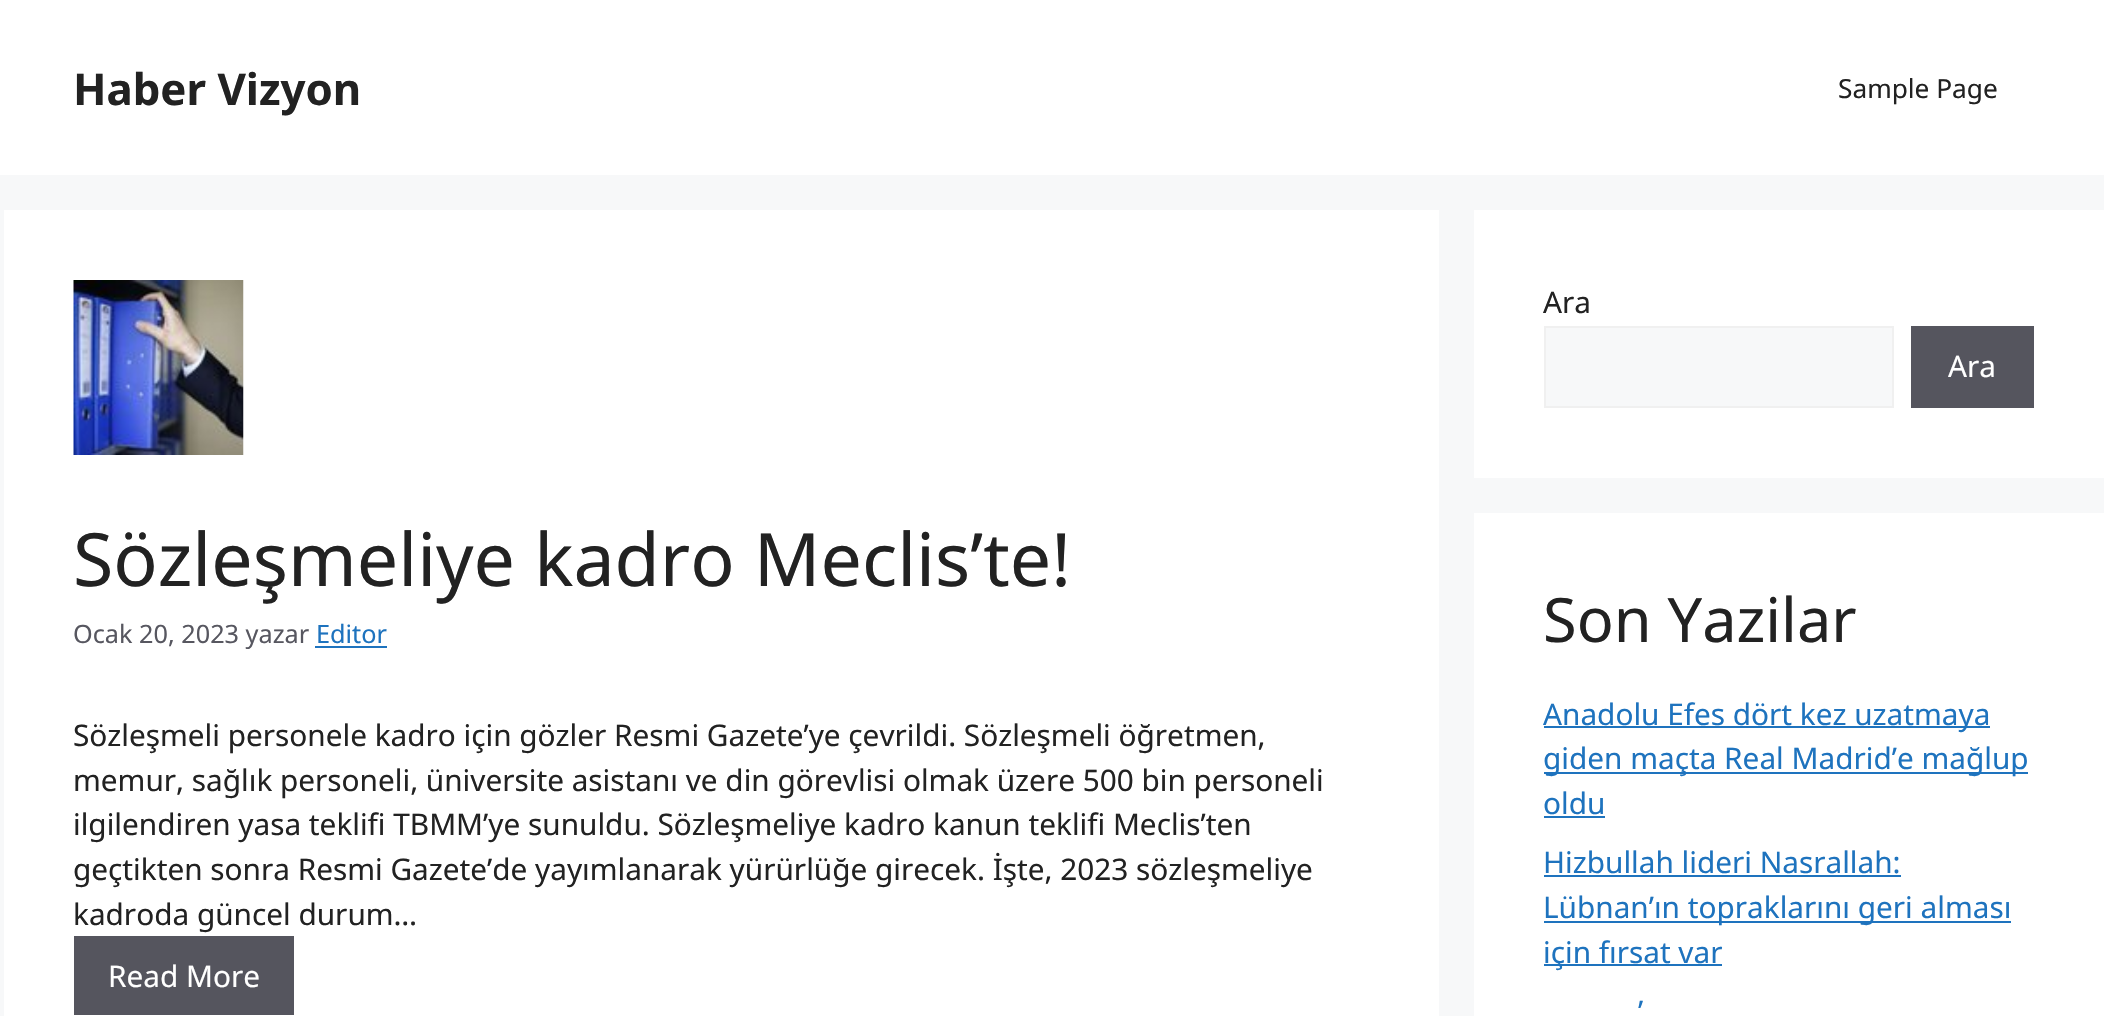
#include "include/core/SkBlurTypes.h"
#include "include/core/SkCanvas.h"
#include "include/core/SkData.h"
#include "include/core/SkFont.h"
#include "include/core/SkFontMgr.h"
#include "include/core/SkImage.h"
#include "include/core/SkMaskFilter.h"
#include "include/core/SkPaint.h"
#include "include/core/SkPathBuilder.h"
#include "include/core/SkTextBlob.h"
#include "include/effects/SkDashPathEffect.h"
#include "include/effects/SkGradientShader.h"
#include "include/utils/SkParsePath.h"

extern sk_sp<SkFontMgr> fontMgr;

void draw(SkCanvas* canvas) {
    SkPaint p;
    p.setAntiAlias(true);
    auto font = [&](const char* family, int weight, float size, bool italic = false) {
        SkFontStyle style(weight, SkFontStyle::kNormal_Width,
            italic ? SkFontStyle::kItalic_Slant : SkFontStyle::kUpright_Slant);
        SkFont result(fontMgr->matchFamilyStyle(family, style), size);
        result.setSubpixel(true);
        return result;
    };
    auto drawPhoto = [&](const char* path, float l, float t, float r, float b) {
        auto image = SkImages::DeferredFromEncodedData(SkData::MakeFromFileName(path));
        canvas->drawImageRect(image, SkRect::MakeLTRB(l, t, r, b), SkSamplingOptions());
    };
    canvas->clear(0xFFF7F8F9);
    p.setColor(0xFFFFFFFF);
    canvas->drawRect(SkRect::MakeLTRB(0, 0, 2104, 175), p);
    auto font1 = font("Noto Sans", 700, 43.75f);
    p.setColor(0xFF222222);
    canvas->drawString("Haber Vizyon", 73, 105, font1, p);
    auto font2 = font("Noto Sans", 400, 26.25f);
    canvas->drawString("Sample Page", 1838, 98, font2, p);
    p.setColor(0xFFFFFFFF);
    canvas->drawRect(SkRect::MakeLTRB(4, 210, 1439, 1016), p);
    drawPhoto("media/1.png", 73, 280, 244, 455);
    auto font3 = font("Noto Sans", 400, 73.5f);
    p.setColor(0xFF222222);
    canvas->drawString("Sözleşmeliye kadro Meclis’te!", 73, 586, font3, p);
    auto font4 = font("Noto Sans", 400, 25.25f);
    p.setColor(0xFF575760);
    canvas->drawString("Ocak 20, 2023 yazar", 73, 643, font4, p);
    p.setColor(0xFF1E73BE);
    canvas->drawString("Editor", 316, 643, font4, p);
    canvas->drawRect(SkRect::MakeLTRB(315, 646, 387, 648), p);
    auto font5 = font("Noto Sans", 400, 29.75f);
    p.setColor(0xFF222222);
    {
        const struct { const char* s; float x, y; } items[] = {
            {"Sözleşmeli personele kadro için gözler Resmi Gazete’ye çevrildi. Sözleşmeli öğretmen,", 73, 746},
            {"memur, sağlık personeli, üniversite asistanı ve din görevlisi olmak üzere 500 bin personeli", 73, 791},
            {"ilgilendiren yasa teklifi TBMM’ye sunuldu. Sözleşmeliye kadro kanun teklifi Meclis’ten", 73, 835},
            {"geçtikten sonra Resmi Gazete’de yayımlanarak yürürlüğe girecek. İşte, 2023 sözleşmeliye", 73, 880},
            {"kadroda güncel durum…", 73, 925},
        };
        for (auto [s, x, y] : items) {
            canvas->drawString(s, x, y, font5, p);
        }
    }
    p.setColor(0xFF55555E);
    canvas->drawRect(SkRect::MakeLTRB(74, 936, 294, 1015), p);
    p.setColor(0xFFFFFFFF);
    canvas->drawString("Read More", 108, 987, font5, p);
    canvas->drawRect(SkRect::MakeLTRB(1474, 210, 2104, 478), p);
    p.setColor(0xFF222222);
    canvas->drawString("Ara", 1543, 313, font5, p);
    p.setColor(0xFFF7F8F9);
    canvas->drawRect(SkRect::MakeLTRB(1545, 327, 1893, 407), p);
    p.setStyle(SkPaint::kStroke_Style);
    p.setStrokeWidth(2);
    p.setColor(0xFFF0F0F0);
    canvas->drawRect(SkRect::MakeLTRB(1545, 327, 1893, 407), p);
    p.setStyle(SkPaint::kFill_Style);
    p.setColor(0xFF55555E);
    canvas->drawRect(SkRect::MakeLTRB(1911, 326, 2034, 408), p);
    p.setColor(0xFFFFFFFF);
    canvas->drawString("Ara", 1948, 377, font5, p);
    canvas->drawRect(SkRect::MakeLTRB(1474, 513, 2104, 1016), p);
    auto font6 = font("Noto Sans", 400, 61.25f);
    p.setColor(0xFF222222);
    canvas->drawString("Son Yazilar", 1543, 642, font6, p);
    p.setColor(0xFF1E73BE);
    canvas->drawRect(SkRect::MakeLTRB(1544, 726, 1990, 728), p);
    canvas->drawString("Anadolu Efes dört kez uzatmaya", 1543, 725, font5, p);
    canvas->drawRect(SkRect::MakeLTRB(1544, 772, 2028, 774), p);
    canvas->drawString("giden maçta Real Madrid’e mağlup", 1543, 769, font5, p);
    canvas->drawString("oldu", 1543, 814, font5, p);
    canvas->drawRect(SkRect::MakeLTRB(1544, 816, 1605, 818), p);
    canvas->drawString("Hizbullah lideri Nasrallah:", 1543, 873, font5, p);
    canvas->drawRect(SkRect::MakeLTRB(1544, 875, 1901, 877), p);
    canvas->drawRect(SkRect::MakeLTRB(1544, 921, 2011, 923), p);
    canvas->drawString("Lübnan’ın topraklarını geri alması", 1543, 918, font5, p);
    canvas->drawRect(SkRect::MakeLTRB(1544, 964, 1722, 966), p);
    canvas->drawString("için fırsat var", 1543, 963, font5, p);
    canvas->drawString("’", 1638, 1022, font5, p);
}
